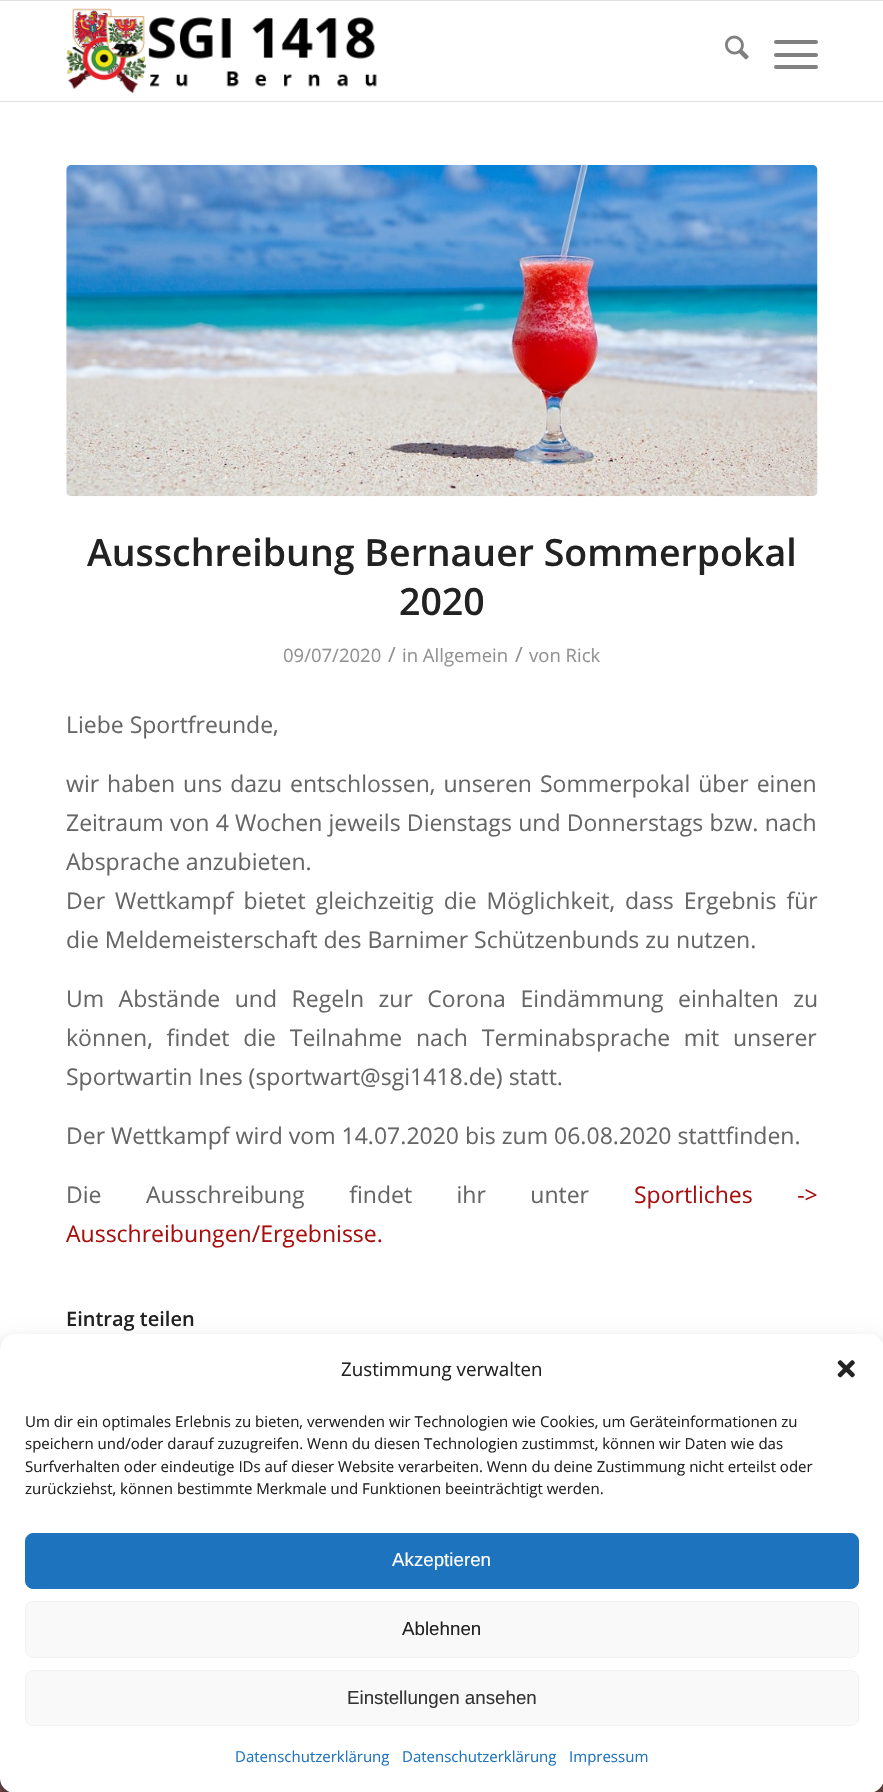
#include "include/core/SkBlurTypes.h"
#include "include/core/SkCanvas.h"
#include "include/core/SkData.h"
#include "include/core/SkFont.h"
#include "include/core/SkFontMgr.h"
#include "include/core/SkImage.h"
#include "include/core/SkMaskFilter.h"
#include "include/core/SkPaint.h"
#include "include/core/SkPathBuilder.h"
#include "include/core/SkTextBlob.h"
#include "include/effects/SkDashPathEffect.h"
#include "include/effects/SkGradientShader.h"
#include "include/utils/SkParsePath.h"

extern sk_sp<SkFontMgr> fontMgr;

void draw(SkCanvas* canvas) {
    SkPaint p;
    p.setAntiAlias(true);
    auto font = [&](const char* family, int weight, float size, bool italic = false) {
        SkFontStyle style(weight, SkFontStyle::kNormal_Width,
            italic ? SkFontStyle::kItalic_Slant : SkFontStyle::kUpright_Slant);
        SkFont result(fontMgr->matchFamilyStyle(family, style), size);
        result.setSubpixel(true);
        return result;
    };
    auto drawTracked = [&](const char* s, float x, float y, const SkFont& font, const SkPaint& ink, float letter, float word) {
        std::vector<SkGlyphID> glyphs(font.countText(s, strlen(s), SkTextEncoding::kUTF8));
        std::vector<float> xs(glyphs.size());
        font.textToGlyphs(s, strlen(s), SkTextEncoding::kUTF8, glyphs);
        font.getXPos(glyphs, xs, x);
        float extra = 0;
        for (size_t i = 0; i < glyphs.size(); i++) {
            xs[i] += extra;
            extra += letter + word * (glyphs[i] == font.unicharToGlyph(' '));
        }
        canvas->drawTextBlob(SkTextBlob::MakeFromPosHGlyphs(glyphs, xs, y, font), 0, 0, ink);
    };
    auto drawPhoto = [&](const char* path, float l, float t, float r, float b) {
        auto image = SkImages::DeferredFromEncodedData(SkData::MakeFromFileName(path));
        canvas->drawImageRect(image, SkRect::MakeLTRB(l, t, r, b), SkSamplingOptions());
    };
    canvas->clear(0xFF663D3D);
    drawPhoto("media/1.png", 0, 1778, 883, 1792);
    {
        const struct { float l, t, r, b; SkColor color; } items[] = {
            {0, 0, 883, 1, 0xFFE1E1E1},
            {0, 1, 883, 1349, 0xFFFFFFFF},
            {0, 101, 883, 102, 0xFFE1E1E1},
        };
        for (auto [l, t, r, b, color] : items) {
            p.setColor(color);
            canvas->drawRect(SkRect::MakeLTRB(l, t, r, b), p);
        }
    }
    drawPhoto("media/2.png", 66, 8, 377, 93);
    drawPhoto("media/3.png", 725, 35, 749, 60);
    p.setColor(0xFF808080);
    canvas->drawRoundRect(SkRect::MakeLTRB(774, 53, 818, 57), 2, 2, p);
    canvas->drawRoundRect(SkRect::MakeLTRB(774, 40, 818, 44), 2, 2, p);
    canvas->drawRoundRect(SkRect::MakeLTRB(774, 65, 818, 69), 2, 2, p);
    drawPhoto("media/4.png", 66, 165, 818, 497);
    auto font1 = font("Open Sans", 600, 37.5f);
    p.setColor(0xFF222222);
    canvas->drawString("Ausschreibung Bernauer Sommerpokal", 87, 566, font1, p);
    canvas->drawString("2020", 399, 615, font1, p);
    auto font2 = font("Open Sans", 400, 18.5f);
    p.setColor(0xFF919191);
    canvas->drawString("09/07/2020", 283, 662, font2, p);
    auto font3 = font("Open Sans", 400, 21);
    canvas->drawString("/", 388, 662, font3, p);
    canvas->drawString("in Allgemein", 402, 662, font2, p);
    canvas->drawString("/", 515, 662, font3, p);
    canvas->drawString("von Rick", 529, 662, font2, p);
    auto font4 = font("Open Sans", 400, 23);
    p.setColor(0xFF666666);
    canvas->drawString("Liebe Sportfreunde,", 66, 733, font4, p);
    drawTracked("wir haben uns dazu entschlossen, unseren Sommerpokal über einen", 66, 792, font4, p, 0, 2);
    drawTracked("Zeitraum von 4 Wochen jeweils Dienstags und Donnerstags bzw. nach", 66, 831, font4, p, 0, 0.25f);
    canvas->drawString("Absprache anzubieten.", 66, 870, font4, p);
    drawTracked("Der Wettkampf bietet gleichzeitig die Möglichkeit, dass Ergebnis für", 66, 909, font4, p, 0, 4);
    canvas->drawString("die Meldemeisterschaft des Barnimer Schützenbunds zu nutzen.", 66, 948, font4, p);
    drawTracked("Um Abstände und Regeln zur Corona Eindämmung einhalten zu", 66, 1007, font4, p, 0, 8.5f);
    drawTracked("können, findet die Teilnahme nach Terminabsprache mit unserer", 66, 1046, font4, p, 0, 7.75f);
    canvas->drawString("Sportwartin Ines (sportwart@sgi1418.de) statt.", 66, 1085, font4, p);
    canvas->drawString("Der Wettkampf wird vom 14.07.2020 bis zum 06.08.2020 stattfinden.", 66, 1144, font4, p);
    drawTracked("Die Ausschreibung findet ihr unter", 66, 1203, font4, p, 0, 38.5f);
    p.setColor(0xFFA81010);
    drawTracked("Sportliches ->", 634, 1203, font4, p, 0, 38.5f);
    canvas->drawString("Ausschreibungen/Ergebnisse.", 66, 1242, font4, p);
    auto font5 = font("Open Sans", 600, 20);
    p.setColor(0xFF222222);
    canvas->drawString("Eintrag teilen", 66, 1326, font5, p);
    p.setColor(0x3B000000);
    p.setMaskFilter(SkMaskFilter::MakeBlur(kNormal_SkBlurStyle, 4));
    canvas->drawRoundRect(SkRect::MakeLTRB(0, 1341, 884, 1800), 15, 15, p);
    p.setMaskFilter(nullptr);
    p.setColor(0x30000000);
    p.setMaskFilter(SkMaskFilter::MakeBlur(kNormal_SkBlurStyle, 12.5f));
    canvas->drawRoundRect(SkRect::MakeLTRB(0, 1346, 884, 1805), 15, 15, p);
    p.setMaskFilter(nullptr);
    p.setColor(0xFFFFFFFF);
    canvas->drawRoundRect(SkRect::MakeLTRB(0, 1334, 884, 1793), 15, 15, p);
    auto font6 = font("Open Sans", 400, 18.75f);
    p.setColor(0xFF222222);
    canvas->drawString("Zustimmung verwalten", 341, 1376, font6, p);
    drawPhoto("media/5.png", 837, 1360, 855, 1378);
    auto font7 = font("Open Sans", 400, 15);
    {
        const struct { const char* s; float x, y; } items[] = {
            {"Um dir ein optimales Erlebnis zu bieten, verwenden wir Technologien wie Cookies, um Geräteinformationen zu", 25, 1427},
            {"speichern und/oder darauf zuzugreifen. Wenn du diesen Technologien zustimmst, können wir Daten wie das", 25, 1449},
            {"Surfverhalten oder eindeutige IDs auf dieser Website verarbeiten. Wenn du deine Zustimmung nicht erteilst oder", 25, 1472},
            {"zurückziehst, können bestimmte Merkmale und Funktionen beeinträchtigt werden.", 25, 1494},
        };
        for (auto [s, x, y] : items) {
            canvas->drawString(s, x, y, font7, p);
        }
    }
    p.setColor(0xFF1E73BE);
    canvas->drawRoundRect(SkRect::MakeLTRB(25.5f, 1533.5f, 858.5f, 1588.5f), 7.5f, 7.5f, p);
    p.setStyle(SkPaint::kStroke_Style);
    p.setStrokeWidth(1);
    canvas->drawRoundRect(SkRect::MakeLTRB(25.5f, 1533.5f, 858.5f, 1588.5f), 7.5f, 7.5f, p);
    auto font8 = font("Liberation Sans", 400, 18.75f);
    p.setStyle(SkPaint::kFill_Style);
    p.setColor(0xFFFFFFFF);
    canvas->drawString("Akzeptieren", 392, 1566, font8, p);
    p.setColor(0xFFF9F9F9);
    canvas->drawRoundRect(SkRect::MakeLTRB(25.5f, 1601.5f, 858.5f, 1657.5f), 7.5f, 7.5f, p);
    p.setStyle(SkPaint::kStroke_Style);
    p.setColor(0xFFF2F2F2);
    canvas->drawRoundRect(SkRect::MakeLTRB(25.5f, 1601.5f, 858.5f, 1657.5f), 7.5f, 7.5f, p);
    p.setStyle(SkPaint::kFill_Style);
    p.setColor(0xFF222222);
    canvas->drawString("Ablehnen", 402, 1635, font8, p);
    p.setColor(0xFFF9F9F9);
    canvas->drawRoundRect(SkRect::MakeLTRB(25.5f, 1670.5f, 858.5f, 1725.5f), 7.5f, 7.5f, p);
    p.setStyle(SkPaint::kStroke_Style);
    p.setColor(0xFFF2F2F2);
    canvas->drawRoundRect(SkRect::MakeLTRB(25.5f, 1670.5f, 858.5f, 1725.5f), 7.5f, 7.5f, p);
    p.setStyle(SkPaint::kFill_Style);
    p.setColor(0xFF333333);
    canvas->drawString("Einstellungen ansehen", 347, 1704, font8, p);
    p.setColor(0xFF1E73BE);
    {
        const struct { const char* s; float x, y; } items[] = {
            {"Datenschutzerklärung", 235, 1762},
            {"Datenschutzerklärung", 402, 1762},
            {"Impressum", 569, 1762},
        };
        for (auto [s, x, y] : items) {
            canvas->drawString(s, x, y, font7, p);
        }
    }
}
